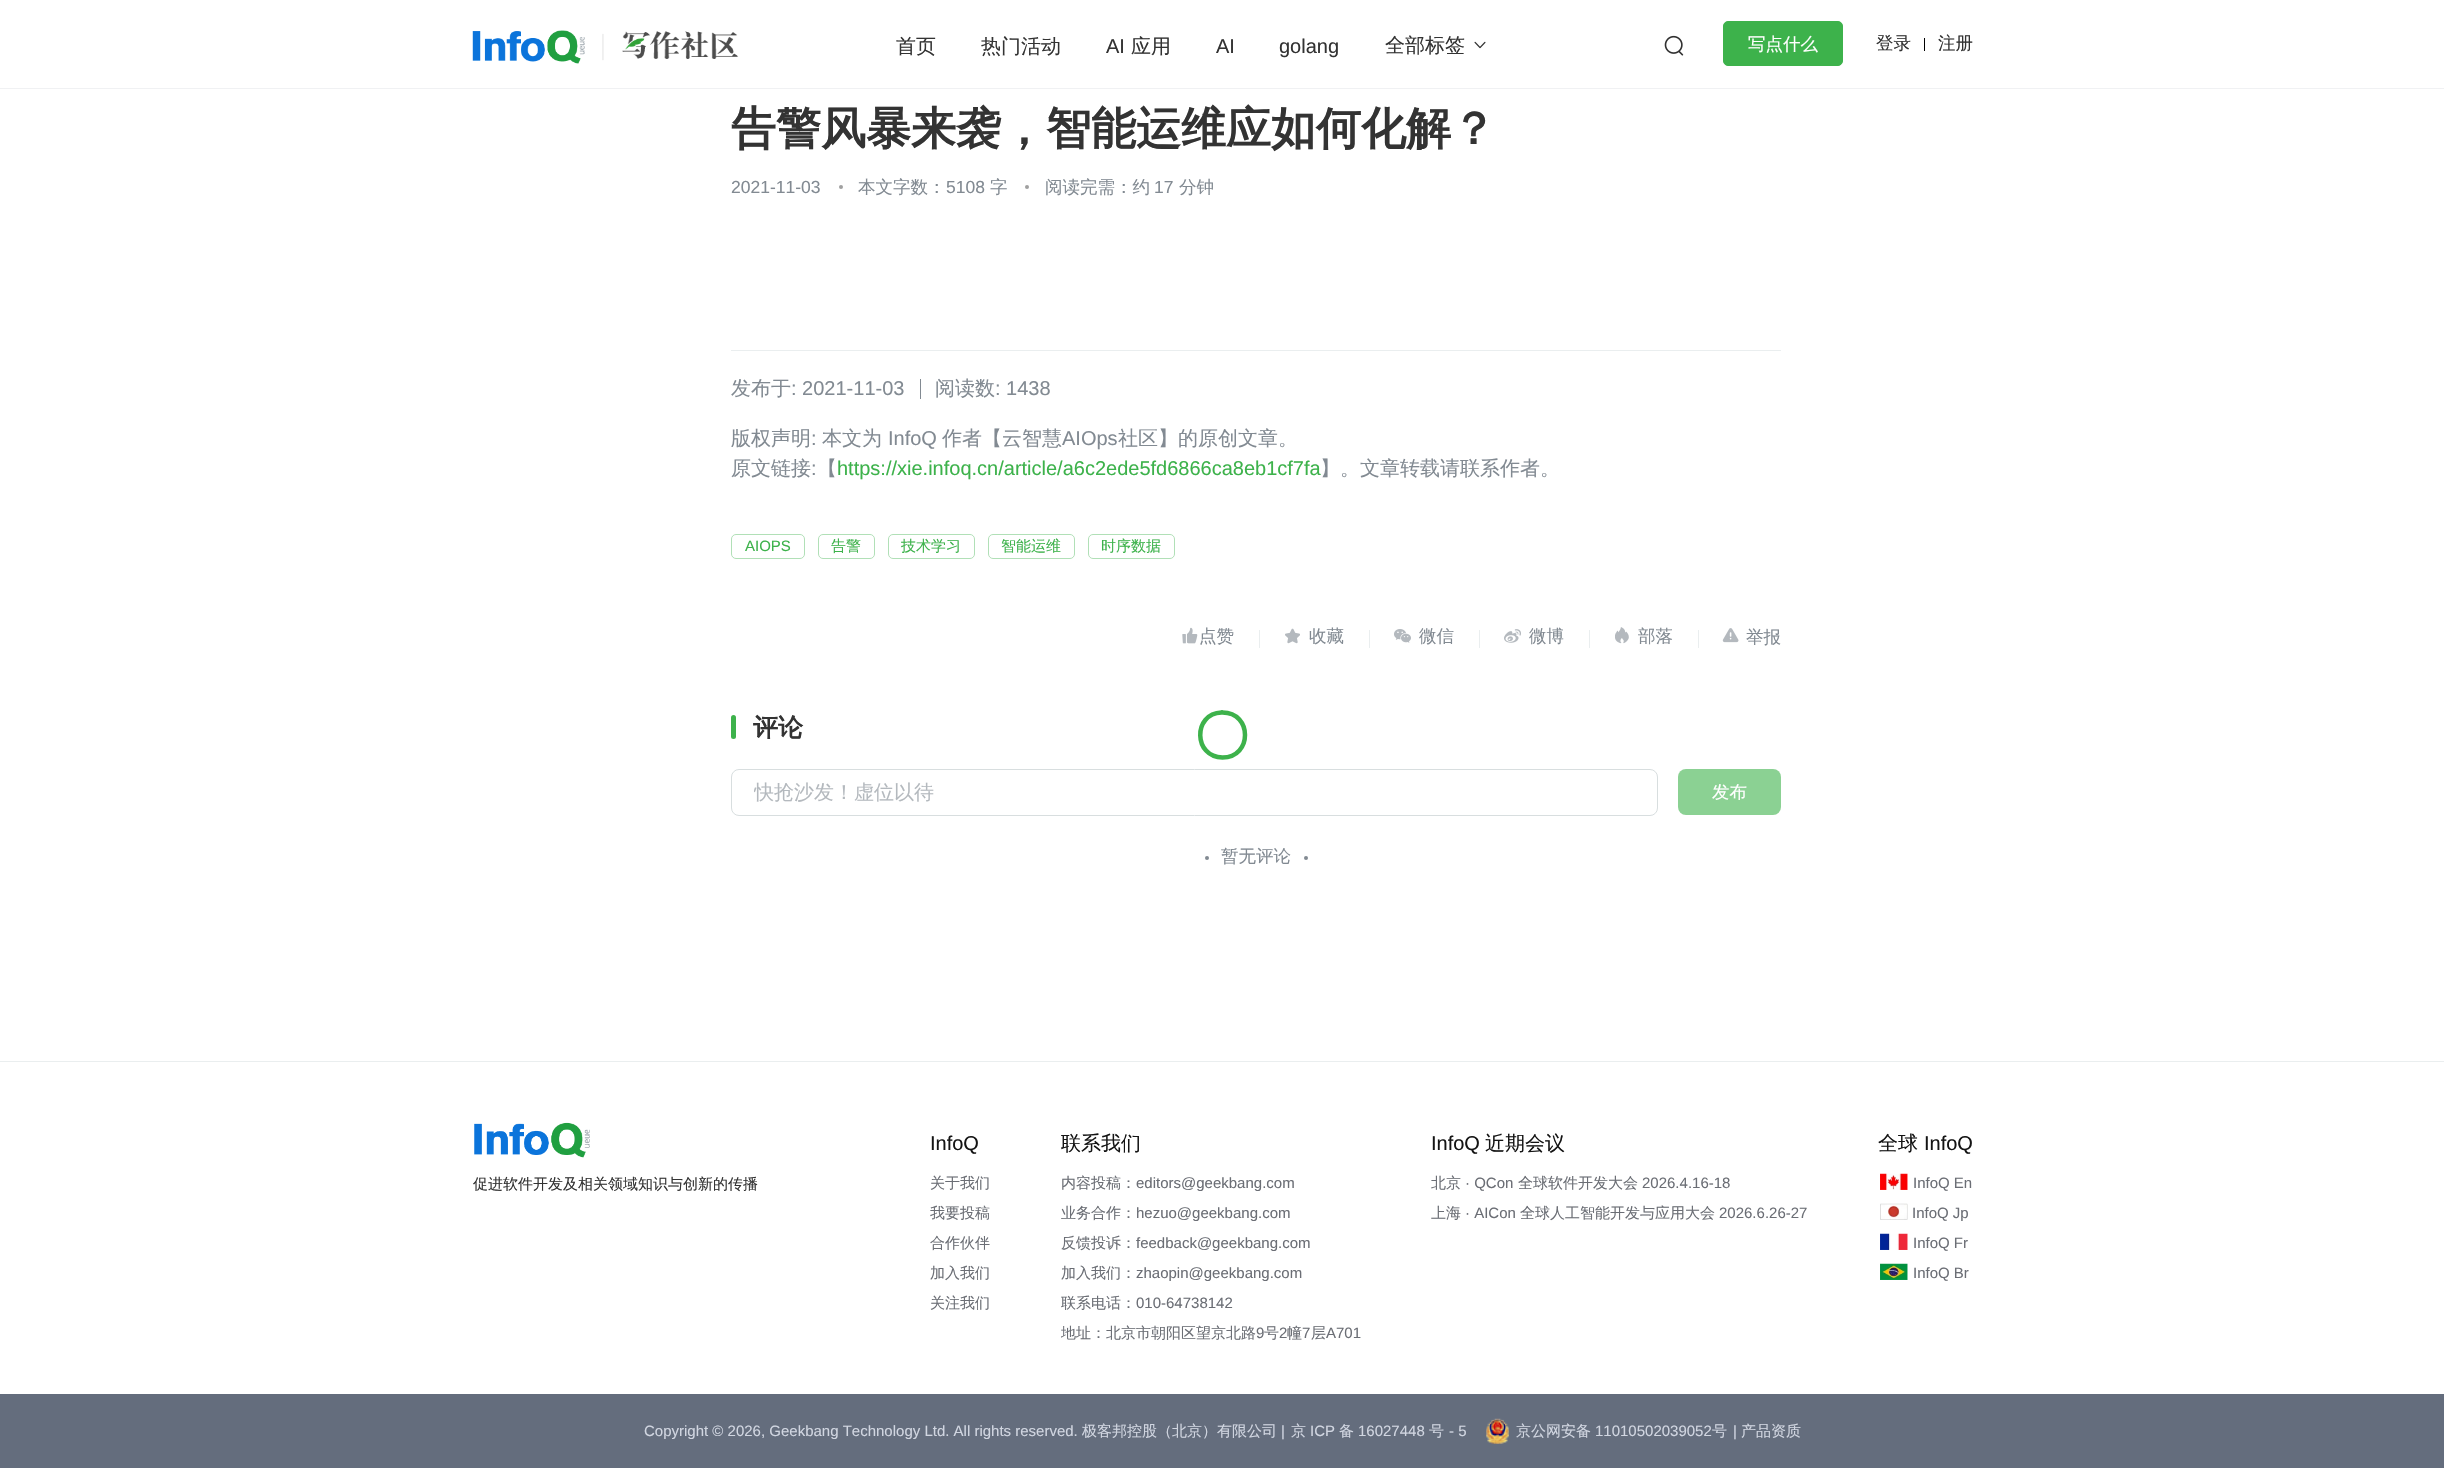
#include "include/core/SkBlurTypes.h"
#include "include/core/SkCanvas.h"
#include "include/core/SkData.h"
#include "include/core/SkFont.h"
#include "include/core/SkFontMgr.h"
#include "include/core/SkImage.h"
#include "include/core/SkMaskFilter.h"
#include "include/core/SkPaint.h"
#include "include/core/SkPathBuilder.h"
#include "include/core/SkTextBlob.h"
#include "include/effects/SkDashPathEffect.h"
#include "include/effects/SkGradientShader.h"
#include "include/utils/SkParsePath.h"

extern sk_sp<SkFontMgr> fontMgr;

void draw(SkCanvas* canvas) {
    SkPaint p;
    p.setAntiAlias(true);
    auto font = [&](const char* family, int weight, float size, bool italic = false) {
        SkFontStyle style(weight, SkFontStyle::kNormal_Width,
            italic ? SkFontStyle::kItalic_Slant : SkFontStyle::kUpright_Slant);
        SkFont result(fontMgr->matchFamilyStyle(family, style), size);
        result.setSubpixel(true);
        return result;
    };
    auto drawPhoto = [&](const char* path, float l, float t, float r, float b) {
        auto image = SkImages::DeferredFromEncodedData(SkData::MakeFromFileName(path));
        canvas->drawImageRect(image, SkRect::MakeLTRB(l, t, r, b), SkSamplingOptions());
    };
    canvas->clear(0xFFFFFFFF);
    p.setColor(0xFFF0F1F3);
    canvas->drawRect(SkRect::MakeLTRB(0, 88, 2444, 89), p);
    drawPhoto("media/1.png", 472, 30, 604, 64);
    drawPhoto("media/2.png", 622, 31, 739, 59);
    auto font1 = font("WenQuanYi Zen Hei", 500, 20);
    p.setColor(0xFF333333);
    canvas->drawString("首页", 896, 53, font1, p);
    canvas->drawString("热门活动", 981, 53, font1, p);
    auto font2 = font("Liberation Sans", 400, 20);
    canvas->drawString("AI", 1106, 53, font2, p);
    canvas->drawString("应用", 1131, 53, font1, p);
    canvas->drawString("AI", 1216, 53, font2, p);
    canvas->drawString("golang", 1279, 53, font2, p);
    canvas->drawString("全部标签", 1385, 52, font1, p);
    drawPhoto("media/3.png", 1474, 41, 1486, 49);
    drawPhoto("media/4.png", 1664, 35, 1684, 56);
    p.setColor(0xFF3DB24B);
    canvas->drawRoundRect(SkRect::MakeLTRB(1723.5f, 21.5f, 1842.5f, 65.5f), 4.5f, 4.5f, p);
    p.setStyle(SkPaint::kStroke_Style);
    p.setStrokeWidth(1);
    canvas->drawRoundRect(SkRect::MakeLTRB(1723.5f, 21.5f, 1842.5f, 65.5f), 4.5f, 4.5f, p);
    auto font3 = font("WenQuanYi Zen Hei", 500, 17.5f);
    p.setStyle(SkPaint::kFill_Style);
    p.setColor(0xFFFFFFFF);
    canvas->drawString("写点什么", 1748, 50, font3, p);
    p.setColor(0xFF333333);
    canvas->drawString("登录", 1876, 49, font3, p);
    p.setColor(0xFF000000);
    canvas->drawRect(SkRect::MakeLTRB(1924, 38, 1925, 51), p);
    p.setColor(0xFF333333);
    canvas->drawString("注册", 1938, 49, font3, p);
    auto font4 = font("WenQuanYi Zen Hei", 700, 45);
    canvas->drawString("告警风暴来袭，智能运维应如何化解？", 731, 144, font4, p);
    auto font5 = font("Liberation Sans", 400, 17.5f);
    p.setColor(0xFF828A92);
    canvas->drawString("2021-11-03", 731, 193, font5, p);
    p.setColor(0xFFA0A0A0);
    canvas->drawCircle(841, 187, 2, p);
    p.setColor(0xFF828A92);
    canvas->drawString("本文字数：", 858, 193, font3, p);
    canvas->drawString("5108", 946, 193, font5, p);
    canvas->drawString("字", 990, 193, font3, p);
    p.setColor(0xFFA0A0A0);
    canvas->drawCircle(1027, 187, 2, p);
    p.setColor(0xFF828A92);
    canvas->drawString("阅读完需：约", 1045, 193, font3, p);
    canvas->drawString("17", 1154, 193, font5, p);
    canvas->drawString("分钟", 1179, 193, font3, p);
    p.setColor(0xFFEAEEEF);
    canvas->drawRect(SkRect::MakeLTRB(731, 350, 1781, 351), p);
    p.setColor(0xFF828A92);
    canvas->drawString("发布于", 731, 395, font1, p);
    canvas->drawString(": 2021-11-03", 791, 395, font2, p);
    canvas->drawRect(SkRect::MakeLTRB(920, 379, 921, 399), p);
    canvas->drawString("阅读数", 935, 395, font1, p);
    canvas->drawString(": 1438", 995, 395, font2, p);
    canvas->drawString("版权声明", 731, 445, font1, p);
    canvas->drawString(":", 811, 445, font2, p);
    canvas->drawString("本文为", 822, 445, font1, p);
    canvas->drawString("InfoQ", 888, 445, font2, p);
    canvas->drawString("作者【云智慧", 942, 445, font1, p);
    canvas->drawString("AIOps", 1062, 445, font2, p);
    canvas->drawString("社区】的原创文章。", 1118, 445, font1, p);
    canvas->drawString("原文链接", 731, 475, font1, p);
    canvas->drawString(":", 811, 475, font2, p);
    canvas->drawString("【", 817, 475, font1, p);
    p.setColor(0xFF3DB24B);
    canvas->drawString("https://xie.infoq.cn/article/a6c2ede5fd6866ca8eb1cf7fa", 837, 475, font2, p);
    p.setColor(0xFF828A92);
    canvas->drawString("】。文章转载请联系作者。", 1320, 475, font1, p);
    p.setStyle(SkPaint::kStroke_Style);
    p.setColor(0xFFB1E0B7);
    canvas->drawRoundRect(SkRect::MakeLTRB(731.5f, 534.5f, 804.5f, 558.5f), 4.5f, 4.5f, p);
    auto font6 = font("Liberation Sans", 400, 15);
    p.setStyle(SkPaint::kFill_Style);
    p.setColor(0xFF3DB24B);
    canvas->drawString("AIOPS", 745, 551, font6, p);
    p.setStyle(SkPaint::kStroke_Style);
    p.setColor(0xFFB1E0B7);
    canvas->drawRoundRect(SkRect::MakeLTRB(818.5f, 534.5f, 874.5f, 558.5f), 4.5f, 4.5f, p);
    auto font7 = font("WenQuanYi Zen Hei", 500, 15);
    p.setStyle(SkPaint::kFill_Style);
    p.setColor(0xFF3DB24B);
    canvas->drawString("告警", 831, 551, font7, p);
    p.setStyle(SkPaint::kStroke_Style);
    p.setColor(0xFFB1E0B7);
    canvas->drawRoundRect(SkRect::MakeLTRB(888.5f, 534.5f, 974.5f, 558.5f), 4.5f, 4.5f, p);
    p.setStyle(SkPaint::kFill_Style);
    p.setColor(0xFF3DB24B);
    canvas->drawString("技术学习", 901, 551, font7, p);
    p.setStyle(SkPaint::kStroke_Style);
    p.setColor(0xFFB1E0B7);
    canvas->drawRoundRect(SkRect::MakeLTRB(988.5f, 534.5f, 1074.5f, 558.5f), 4.5f, 4.5f, p);
    p.setStyle(SkPaint::kFill_Style);
    p.setColor(0xFF3DB24B);
    canvas->drawString("智能运维", 1001, 551, font7, p);
    p.setStyle(SkPaint::kStroke_Style);
    p.setColor(0xFFB1E0B7);
    canvas->drawRoundRect(SkRect::MakeLTRB(1088.5f, 534.5f, 1174.5f, 558.5f), 4.5f, 4.5f, p);
    p.setStyle(SkPaint::kFill_Style);
    p.setColor(0xFF3DB24B);
    canvas->drawString("时序数据", 1101, 551, font7, p);
    drawPhoto("media/5.png", 1182, 627, 1198, 644);
    p.setColor(0xFF828A92);
    canvas->drawString("点赞", 1199, 642, font3, p);
    p.setColor(0xFFEAEEEF);
    canvas->drawRect(SkRect::MakeLTRB(1259, 630, 1260, 648), p);
    drawPhoto("media/6.png", 1285, 628, 1300, 644);
    p.setColor(0xFF828A92);
    canvas->drawString("收藏", 1309, 642, font3, p);
    p.setColor(0xFFEAEEEF);
    canvas->drawRect(SkRect::MakeLTRB(1369, 630, 1370, 648), p);
    drawPhoto("media/7.png", 1394, 629, 1411, 643);
    p.setColor(0xFF828A92);
    canvas->drawString("微信", 1419, 642, font3, p);
    p.setColor(0xFFEAEEEF);
    canvas->drawRect(SkRect::MakeLTRB(1479, 630, 1480, 648), p);
    drawPhoto("media/8.png", 1504, 629, 1521, 643);
    p.setColor(0xFF828A92);
    canvas->drawString("微博", 1529, 642, font3, p);
    p.setColor(0xFFEAEEEF);
    canvas->drawRect(SkRect::MakeLTRB(1589, 630, 1590, 648), p);
    drawPhoto("media/9.png", 1615, 627, 1629, 644);
    p.setColor(0xFF828A92);
    canvas->drawString("部落", 1638, 642, font3, p);
    p.setColor(0xFFEAEEEF);
    canvas->drawRect(SkRect::MakeLTRB(1698, 630, 1699, 648), p);
    drawPhoto("media/10.png", 1722, 628, 1739, 643);
    p.setColor(0xFF828A92);
    canvas->drawString("举报", 1746, 643, font3, p);
    p.setStyle(SkPaint::kStroke_Style);
    p.setStrokeWidth(4.5f);
    p.setStrokeCap(SkPaint::kRound_Cap);
    p.setColor(0xFF3DB24B);
    canvas->drawPath(SkPathBuilder().moveTo(1222.5f, 712.5f).cubicTo(1252.5f, 712.5f, 1252.5f, 757.5f, 1222.5f, 757.5f).cubicTo(1193.5f, 757.5f, 1192.5f, 713.5f, 1221.5f, 712.5f).detach(), p);
    p.setStyle(SkPaint::kFill_Style);
    canvas->drawRoundRect(SkRect::MakeLTRB(731, 715, 736, 739), 2.5f, 2.5f, p);
    auto font8 = font("WenQuanYi Zen Hei", 700, 25);
    p.setColor(0xFF333333);
    canvas->drawString("评论", 753, 736, font8, p);
    p.setStyle(SkPaint::kStroke_Style);
    p.setStrokeWidth(1);
    p.setStrokeCap(SkPaint::kButt_Cap);
    p.setColor(0xFFD8DEDF);
    canvas->drawRoundRect(SkRect::MakeLTRB(731.5f, 769.5f, 1657.5f, 815.5f), 7.5f, 7.5f, p);
    canvas->save();
    canvas->clipPath(SkPathBuilder().moveTo(762, 770).lineTo(1648, 770).cubicTo(1652.5f, 770, 1656, 773.5f, 1656, 778).lineTo(1656, 807).cubicTo(1656, 811.5f, 1652.5f, 815, 1648, 815).lineTo(762, 815).cubicTo(757.5f, 815, 754, 811.5f, 754, 807).lineTo(754, 778).cubicTo(754, 773.5f, 757.5f, 770, 762, 770).close().detach(), true);
    p.setStyle(SkPaint::kFill_Style);
    p.setColor(0xFFB4B9BE);
    canvas->drawString("快抢沙发！虚位以待", 754, 799, font1, p);
    canvas->restore();
    p.setColor(0xFF8BD193);
    canvas->drawRoundRect(SkRect::MakeLTRB(1678, 769, 1781, 815), 8, 8, p);
    p.setColor(0xFFFFFFFF);
    canvas->drawString("发布", 1712, 798, font3, p);
    p.setColor(0xFF828A92);
    canvas->drawCircle(1207, 858, 2, p);
    canvas->drawString("暂无评论", 1221, 862, font3, p);
    canvas->drawCircle(1306, 858, 2, p);
    p.setColor(0xFFEAEEEF);
    canvas->drawRect(SkRect::MakeLTRB(0, 1061, 2444, 1062), p);
    drawPhoto("media/11.png", 474, 1122, 590, 1158);
    p.setColor(0xFF333333);
    canvas->drawString("促进软件开发及相关领域知识与创新的传播", 473, 1189, font7, p);
    p.setColor(0xFF141414);
    canvas->drawString("InfoQ", 930, 1150, font2, p);
    p.setColor(0xFF6B6E75);
    {
        const struct { const char* s; float x, y; } items[] = {
            {"关于我们", 930, 1188},
            {"我要投稿", 930, 1218},
            {"合作伙伴", 930, 1248},
            {"加入我们", 930, 1278},
            {"关注我们", 930, 1308},
        };
        for (auto [s, x, y] : items) {
            canvas->drawString(s, x, y, font7, p);
        }
    }
    p.setColor(0xFF141414);
    canvas->drawString("联系我们", 1061, 1150, font1, p);
    p.setColor(0xFF6B6E75);
    canvas->drawString("内容投稿：", 1061, 1188, font7, p);
    canvas->drawString("editors@geekbang.com", 1136, 1188, font6, p);
    canvas->drawString("业务合作：", 1061, 1218, font7, p);
    canvas->drawString("hezuo@geekbang.com", 1136, 1218, font6, p);
    canvas->drawString("反馈投诉：", 1061, 1248, font7, p);
    canvas->drawString("feedback@geekbang.com", 1136, 1248, font6, p);
    canvas->drawString("加入我们：", 1061, 1278, font7, p);
    canvas->drawString("zhaopin@geekbang.com", 1136, 1278, font6, p);
    canvas->drawString("联系电话：", 1061, 1308, font7, p);
    canvas->drawString("010-64738142", 1136, 1308, font6, p);
    canvas->drawString("地址：北京市朝阳区望京北路", 1061, 1338, font7, p);
    canvas->drawString("9", 1256, 1338, font6, p);
    canvas->drawString("号", 1264, 1338, font7, p);
    canvas->drawString("2", 1279, 1338, font6, p);
    canvas->drawString("幢", 1287, 1338, font7, p);
    canvas->drawString("7", 1302, 1338, font6, p);
    canvas->drawString("层", 1311, 1338, font7, p);
    canvas->drawString("A701", 1326, 1338, font6, p);
    p.setColor(0xFF141414);
    canvas->drawString("InfoQ", 1431, 1150, font2, p);
    canvas->drawString("近期会议", 1485, 1150, font1, p);
    p.setColor(0xFF6B6E75);
    canvas->drawString("北京", 1431, 1188, font7, p);
    canvas->drawString("· QCon", 1465, 1188, font6, p);
    canvas->drawString("全球软件开发大会", 1518, 1188, font7, p);
    canvas->drawString("2026.4.16-18", 1642, 1188, font6, p);
    canvas->drawString("上海", 1431, 1218, font7, p);
    canvas->drawString("· AICon", 1465, 1218, font6, p);
    canvas->drawString("全球人工智能开发与应用大会", 1520, 1218, font7, p);
    canvas->drawString("2026.6.26-27", 1719, 1218, font6, p);
    p.setColor(0xFF141414);
    canvas->drawString("全球", 1878, 1150, font1, p);
    canvas->drawString("InfoQ", 1924, 1150, font2, p);
    drawPhoto("media/12.png", 1880, 1173, 1908, 1190);
    p.setColor(0xFF6B6E75);
    canvas->drawString("InfoQ En", 1913, 1188, font6, p);
    drawPhoto("media/13.png", 1880, 1203, 1908, 1220);
    canvas->drawString("InfoQ Jp", 1912, 1218, font6, p);
    drawPhoto("media/14.png", 1880, 1233, 1908, 1250);
    canvas->drawString("InfoQ Fr", 1913, 1248, font6, p);
    drawPhoto("media/15.png", 1880, 1263, 1908, 1280);
    canvas->drawString("InfoQ Br", 1913, 1278, font6, p);
    p.setColor(0xFF646D7D);
    canvas->drawRect(SkRect::MakeLTRB(0, 1394, 2444, 1468), p);
    p.setColor(0xFFD1D6E1);
    canvas->drawString("Copyright © 2026, Geekbang Technology Ltd. All rights reserved.", 644, 1436, font6, p);
    canvas->drawString("极客邦控股（北京）有限公司", 1082, 1436, font7, p);
    canvas->drawString("|", 1281, 1436, font6, p);
    canvas->drawString("京", 1291, 1436, font7, p);
    canvas->drawString("ICP", 1310, 1436, font6, p);
    canvas->drawString("备", 1339, 1436, font7, p);
    canvas->drawString("16027448", 1358, 1436, font6, p);
    canvas->drawString("号", 1429, 1436, font7, p);
    canvas->drawString("- 5", 1449, 1436, font6, p);
    drawPhoto("media/16.png", 1486, 1418, 1509, 1444);
    canvas->drawString("京公网安备", 1516, 1436, font7, p);
    canvas->drawString("11010502039052", 1595, 1436, font6, p);
    canvas->drawString("号", 1712, 1436, font7, p);
    canvas->drawString("|", 1733, 1436, font6, p);
    canvas->drawString("产品资质", 1741, 1436, font7, p);
}
